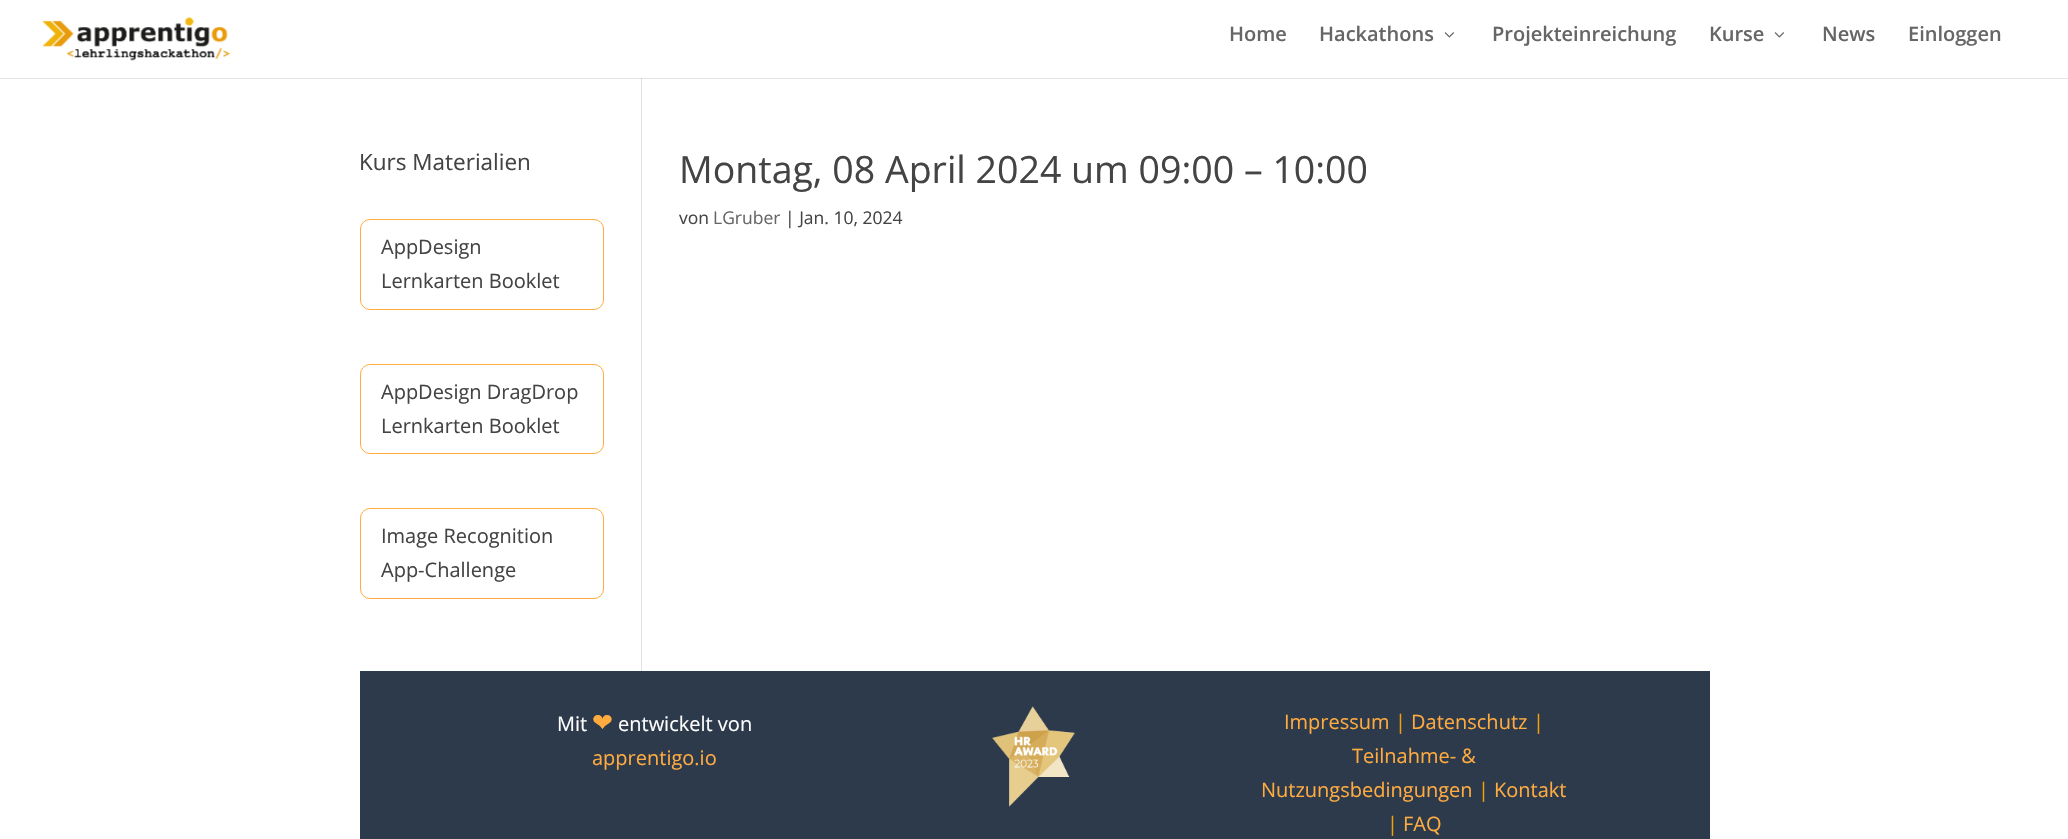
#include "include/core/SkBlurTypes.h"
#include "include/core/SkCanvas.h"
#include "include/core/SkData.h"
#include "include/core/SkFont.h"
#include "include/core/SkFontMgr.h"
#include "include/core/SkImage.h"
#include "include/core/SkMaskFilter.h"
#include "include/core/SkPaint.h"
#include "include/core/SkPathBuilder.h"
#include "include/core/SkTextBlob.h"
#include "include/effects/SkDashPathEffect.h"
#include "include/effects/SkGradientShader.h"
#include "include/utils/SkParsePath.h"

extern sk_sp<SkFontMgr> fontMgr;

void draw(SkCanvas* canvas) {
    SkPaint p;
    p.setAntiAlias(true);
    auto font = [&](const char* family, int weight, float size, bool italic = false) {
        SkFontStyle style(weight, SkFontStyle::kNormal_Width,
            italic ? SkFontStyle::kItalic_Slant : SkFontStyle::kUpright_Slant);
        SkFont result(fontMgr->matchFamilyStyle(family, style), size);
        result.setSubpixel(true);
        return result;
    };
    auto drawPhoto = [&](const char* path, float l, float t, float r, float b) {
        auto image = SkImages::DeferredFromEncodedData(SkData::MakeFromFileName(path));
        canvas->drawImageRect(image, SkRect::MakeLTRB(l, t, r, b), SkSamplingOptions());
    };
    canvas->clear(0xFFFFFFFF);
    p.setColor(0xFFE2E2E2);
    canvas->drawRect(SkRect::MakeLTRB(641, 78, 642, 671), p);
    p.setColor(0x1A000000);
    canvas->drawPath(SkPathBuilder().moveTo(0, 78).lineTo(0, 79).lineTo(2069, 79).lineTo(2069, 1).lineTo(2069, 78).close().detach(), p);
    drawPhoto("media/1.png", 42, 17, 231, 61);
    auto font1 = font("Open Sans", 600, 20);
    p.setColor(0xFF666666);
    canvas->drawString("Home", 1229, 41, font1, p);
    canvas->drawString("Hackathons", 1319, 41, font1, p);
    drawPhoto("media/2.png", 1444, 32, 1454, 38);
    canvas->drawString("Projekteinreichung", 1492, 41, font1, p);
    canvas->drawString("Kurse", 1709, 41, font1, p);
    drawPhoto("media/2.png", 1774, 32, 1784, 38);
    canvas->drawString("News", 1822, 41, font1, p);
    canvas->drawString("Einloggen", 1908, 41, font1, p);
    auto font2 = font("Open Sans", 400, 22.5f);
    p.setColor(0xFF444444);
    canvas->drawString("Kurs Materialien", 359, 170, font2, p);
    p.setStyle(SkPaint::kStroke_Style);
    p.setStrokeWidth(1);
    p.setColor(0xFFFFAB40);
    canvas->drawRoundRect(SkRect::MakeLTRB(360.5f, 219.5f, 603.5f, 309.5f), 9.5f, 9.5f, p);
    auto font3 = font("Open Sans", 400, 20);
    p.setStyle(SkPaint::kFill_Style);
    p.setColor(0xFF444444);
    canvas->drawString("AppDesign", 381, 254, font3, p);
    canvas->drawString("Lernkarten Booklet", 381, 288, font3, p);
    p.setStyle(SkPaint::kStroke_Style);
    p.setColor(0xFFFFAB40);
    canvas->drawRoundRect(SkRect::MakeLTRB(360.5f, 364.5f, 603.5f, 453.5f), 9.5f, 9.5f, p);
    p.setStyle(SkPaint::kFill_Style);
    p.setColor(0xFF444444);
    canvas->drawString("AppDesign DragDrop", 381, 399, font3, p);
    canvas->drawString("Lernkarten Booklet", 381, 433, font3, p);
    p.setStyle(SkPaint::kStroke_Style);
    p.setColor(0xFFFFAB40);
    canvas->drawRoundRect(SkRect::MakeLTRB(360.5f, 508.5f, 603.5f, 598.5f), 9.5f, 9.5f, p);
    p.setStyle(SkPaint::kFill_Style);
    p.setColor(0xFF444444);
    canvas->drawString("Image Recognition", 381, 543, font3, p);
    canvas->drawString("App-Challenge", 381, 577, font3, p);
    auto font4 = font("Open Sans", 400, 37.5f);
    canvas->drawString("Montag, 08 April 2024 um 09:00 – 10:00", 679, 183, font4, p);
    auto font5 = font("Open Sans", 400, 17.5f);
    canvas->drawString("von", 679, 224, font5, p);
    p.setColor(0xFF666666);
    canvas->drawString("LGruber", 713, 224, font5, p);
    p.setColor(0xFF444444);
    canvas->drawString("| Jan. 10, 2024", 785, 224, font5, p);
    p.setColor(0xFF2C3A4B);
    canvas->drawRect(SkRect::MakeLTRB(360, 671, 1710, 839), p);
    p.setColor(0xFFFFFFFF);
    canvas->drawString("Mit", 557, 731, font3, p);
    auto font6 = font("DejaVu Sans", 400, 25);
    p.setColor(0xFFFFAB40);
    canvas->drawString("❤", 592, 731, font6, p);
    p.setColor(0xFFFFFFFF);
    canvas->drawString("entwickelt von", 618, 731, font3, p);
    p.setColor(0xFFFFAB40);
    canvas->drawString("apprentigo.io", 592, 765, font3, p);
    drawPhoto("media/3.png", 992, 706, 1075, 807);
    canvas->drawString("Impressum", 1284, 729, font3, p);
    p.setColor(0xFFF2A007);
    canvas->drawString("|", 1395, 729, font3, p);
    p.setColor(0xFFFFAB40);
    canvas->drawString("Datenschutz", 1411, 729, font3, p);
    p.setColor(0xFFF2A007);
    canvas->drawString("|", 1533, 729, font3, p);
    p.setColor(0xFFFFAB40);
    canvas->drawString("Teilnahme- &", 1352, 763, font3, p);
    canvas->drawString("Nutzungsbedingungen", 1261, 797, font3, p);
    p.setColor(0xFFF2A007);
    canvas->drawString("|", 1478, 797, font3, p);
    p.setColor(0xFFFFAB40);
    canvas->drawString("Kontakt", 1494, 797, font3, p);
    p.setColor(0xFFF2A007);
    canvas->drawString("|", 1387, 831, font3, p);
    p.setColor(0xFFFFAB40);
    canvas->drawString("FAQ", 1403, 831, font3, p);
}
